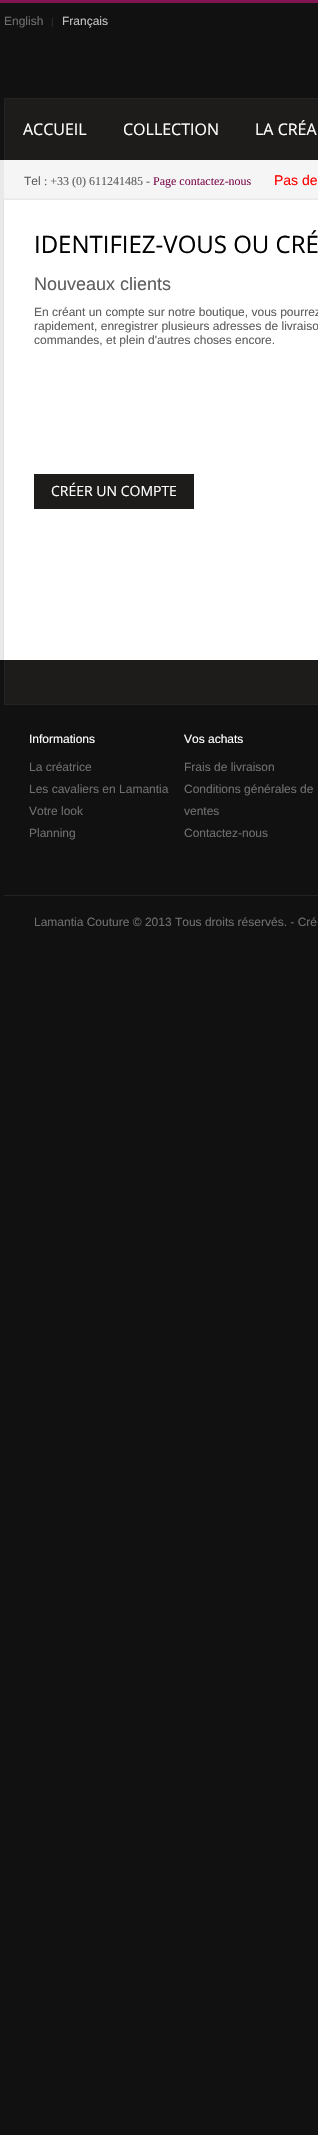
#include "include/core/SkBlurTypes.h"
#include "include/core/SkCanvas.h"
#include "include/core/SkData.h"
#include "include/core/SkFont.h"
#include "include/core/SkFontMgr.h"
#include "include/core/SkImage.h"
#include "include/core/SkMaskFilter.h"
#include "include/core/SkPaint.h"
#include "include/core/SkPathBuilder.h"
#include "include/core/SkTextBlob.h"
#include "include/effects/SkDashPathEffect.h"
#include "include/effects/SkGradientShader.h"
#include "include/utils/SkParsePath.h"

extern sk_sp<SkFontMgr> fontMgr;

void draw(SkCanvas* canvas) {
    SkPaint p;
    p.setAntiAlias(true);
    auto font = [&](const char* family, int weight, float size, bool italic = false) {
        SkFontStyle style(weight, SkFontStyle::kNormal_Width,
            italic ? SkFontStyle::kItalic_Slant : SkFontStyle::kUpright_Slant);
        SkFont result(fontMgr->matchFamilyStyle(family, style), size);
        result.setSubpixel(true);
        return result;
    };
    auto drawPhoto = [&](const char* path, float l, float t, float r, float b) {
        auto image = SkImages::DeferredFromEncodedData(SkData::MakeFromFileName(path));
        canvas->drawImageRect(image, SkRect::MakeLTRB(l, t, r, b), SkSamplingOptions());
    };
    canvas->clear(0xFF111111);
    p.setColor(0xFF811453);
    canvas->drawRect(SkRect::MakeLTRB(0, 0, 318, 3), p);
    auto font1 = font("Liberation Sans", 400, 12);
    p.setColor(0xFF6E6E6E);
    canvas->drawString("English", 4, 25, font1, p);
    auto font2 = font("Liberation Sans", 400, 10);
    p.setColor(0xFF2D2D2D);
    canvas->drawString("|", 51, 25, font2, p);
    p.setColor(0xFFC1C1C1);
    canvas->drawString("Français", 62, 25, font1, p);
    {
        const struct { float l, t, r, b; SkColor color; } items[] = {
            {5, 99, 318, 160, 0xFF1D1C1B},
            {4, 98, 318, 99, 0xFF242424},
            {4, 98, 5, 160, 0xFF242424},
        };
        for (auto [l, t, r, b, color] : items) {
            p.setColor(color);
            canvas->drawRect(SkRect::MakeLTRB(l, t, r, b), p);
        }
    }
    auto font3 = font("Open Sans", 400, 16);
    p.setColor(0xFFFFFFFF);
    {
        const struct { const char* s; float x, y; } items[] = {
            {"ACCUEIL", 23, 135},
            {"COLLECTION", 123, 135},
            {"LA CRÉA", 255, 135},
        };
        for (auto [s, x, y] : items) {
            canvas->drawString(s, x, y, font3, p);
        }
    }
    p.setColor(0xFFE9E9E9);
    canvas->drawRect(SkRect::MakeLTRB(0, 160, 4, 660), p);
    p.setColor(0xFFF5F5F5);
    canvas->drawRect(SkRect::MakeLTRB(4, 160, 318, 199), p);
    drawPhoto("media/1.png", 4, 198, 318, 200);
    p.setColor(0xFF5E5E5E);
    canvas->drawString("Tel", 24, 185, font1, p);
    auto font4 = font("Liberation Serif", 400, 12);
    canvas->drawString(": +33 (0) 611241485 -", 44, 185, font4, p);
    p.setColor(0xFF811453);
    canvas->drawString("Page contactez-nous", 153, 185, font4, p);
    auto font5 = font("Liberation Sans", 400, 14);
    p.setColor(0xFFFF0000);
    canvas->drawString("Pas de", 274, 185, font5, p);
    p.setColor(0xFFE2E2E2);
    canvas->drawRect(SkRect::MakeLTRB(3, 200, 4, 660), p);
    p.setColor(0xFFFFFFFF);
    canvas->drawRect(SkRect::MakeLTRB(4, 200, 318, 660), p);
    auto font6 = font("Open Sans", 400, 24);
    p.setColor(0xFF000000);
    canvas->drawString("IDENTIFIEZ-VOUS OU CRÉ", 34, 253, font6, p);
    auto font7 = font("Liberation Sans", 400, 18);
    p.setColor(0xFF5E5E5E);
    canvas->drawString("Nouveaux clients", 34, 290, font7, p);
    {
        const struct { const char* s; float x, y; } items[] = {
            {"En créant un compte sur notre boutique, vous pourrez", 34, 316},
            {"rapidement, enregistrer plusieurs adresses de livraiso", 34, 330},
            {"commandes, et plein d'autres choses encore.", 34, 344},
        };
        for (auto [s, x, y] : items) {
            canvas->drawString(s, x, y, font1, p);
        }
    }
    p.setColor(0xFF1D1C1B);
    canvas->drawRect(SkRect::MakeLTRB(34, 474, 194, 509), p);
    auto font8 = font("Open Sans", 400, 14);
    p.setColor(0xFFFFFFFF);
    canvas->drawString("CRÉER UN COMPTE", 51, 496, font8, p);
    {
        const struct { float l, t, r, b; SkColor color; } items[] = {
            {5, 660, 318, 704, 0xFF1D1C1B},
            {4, 704, 318, 705, 0xFF242424},
            {4, 660, 5, 705, 0xFF242424},
        };
        for (auto [l, t, r, b, color] : items) {
            p.setColor(color);
            canvas->drawRect(SkRect::MakeLTRB(l, t, r, b), p);
        }
    }
    p.setColor(0xFFFFFFFF);
    canvas->drawString("Informations", 29, 743, font1, p);
    p.setColor(0xFF6E6E6E);
    {
        const struct { const char* s; float x, y; } items[] = {
            {"La créatrice", 29, 771},
            {"Les cavaliers en Lamantia", 29, 793},
            {"Votre look", 29, 815},
            {"Planning", 29, 837},
        };
        for (auto [s, x, y] : items) {
            canvas->drawString(s, x, y, font1, p);
        }
    }
    p.setColor(0xFFFFFFFF);
    canvas->drawString("Vos achats", 184, 743, font1, p);
    p.setColor(0xFF6E6E6E);
    {
        const struct { const char* s; float x, y; } items[] = {
            {"Frais de livraison", 184, 771},
            {"Conditions générales de", 184, 793},
            {"ventes", 184, 815},
            {"Contactez-nous", 184, 837},
        };
        for (auto [s, x, y] : items) {
            canvas->drawString(s, x, y, font1, p);
        }
    }
    p.setColor(0xFF222222);
    canvas->drawRect(SkRect::MakeLTRB(4, 895, 318, 896), p);
    p.setColor(0xFF6E6E6E);
    canvas->drawString("Lamantia Couture © 2013 Tous droits réservés. - Cré", 34, 926, font1, p);
}
